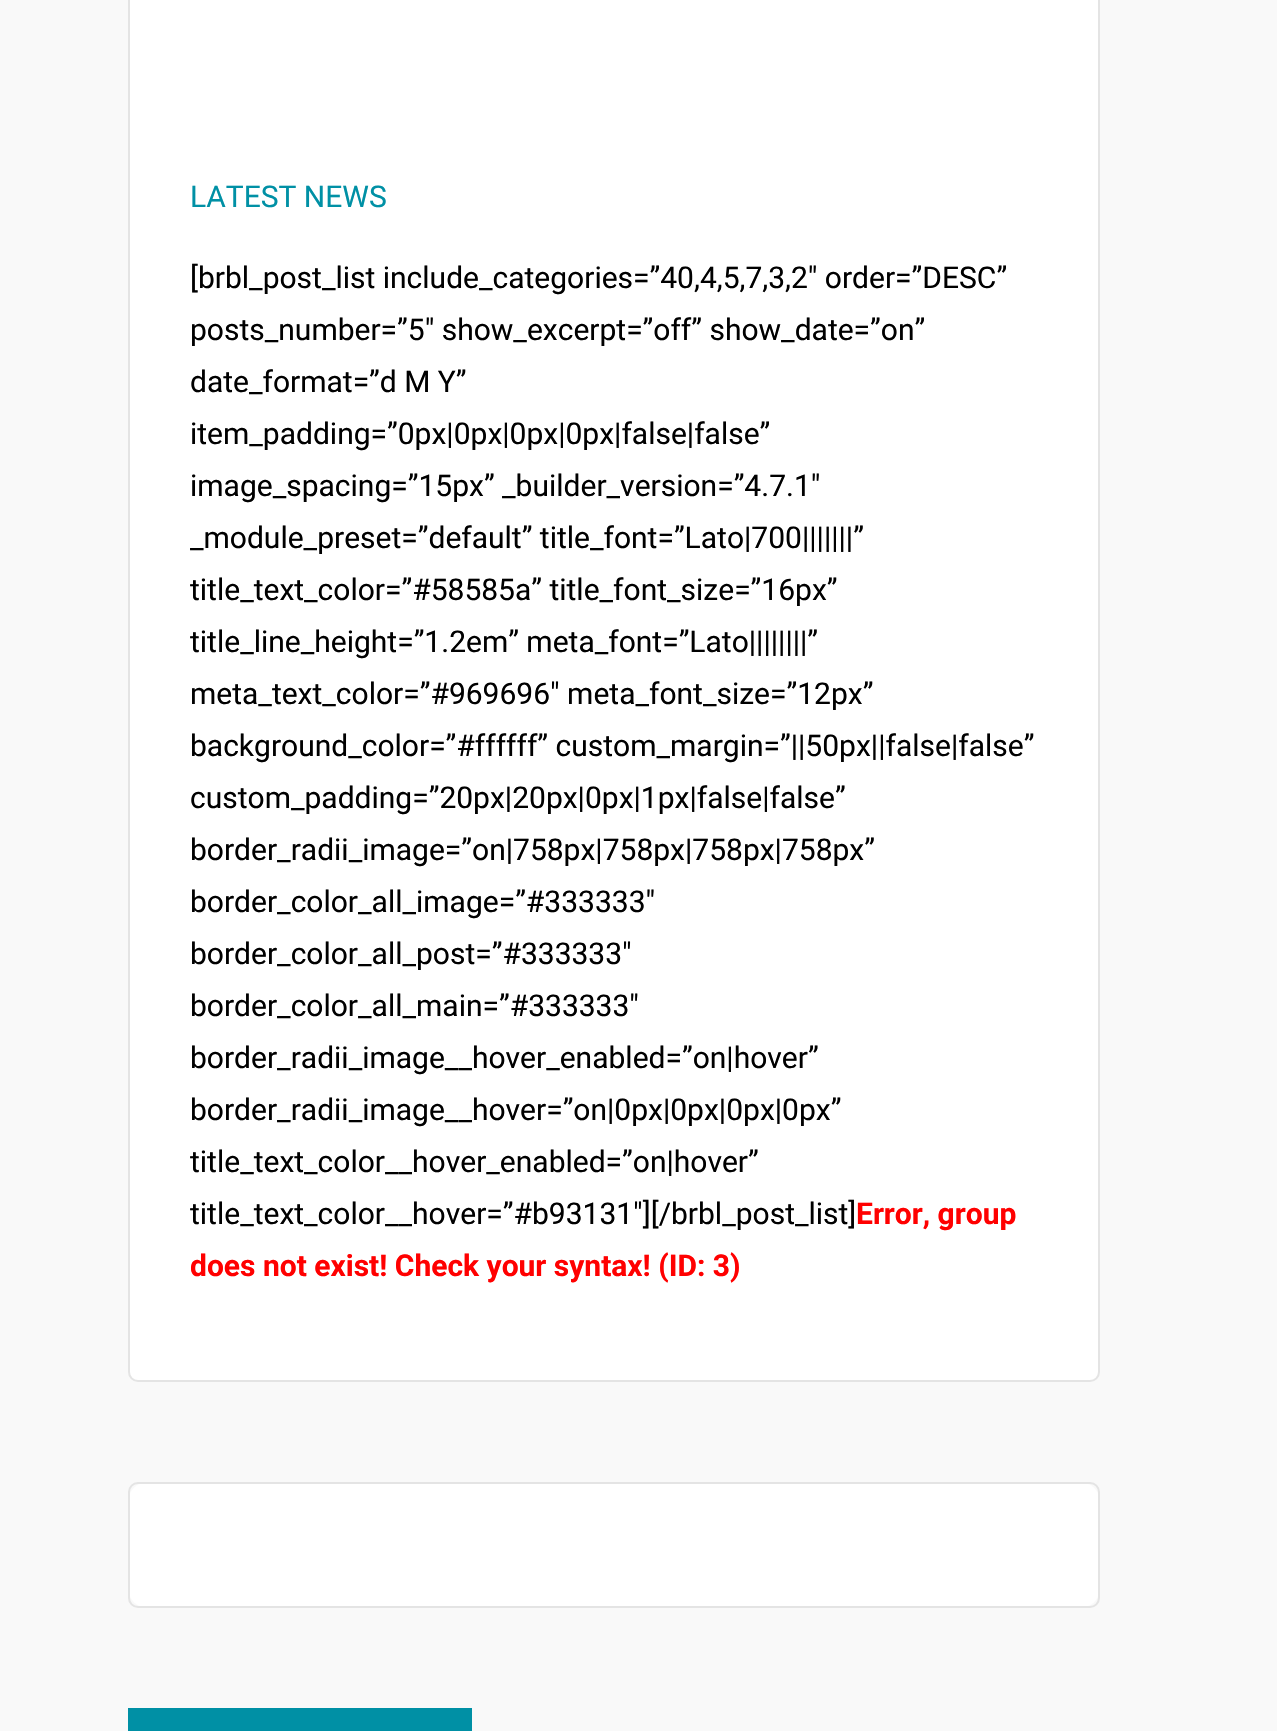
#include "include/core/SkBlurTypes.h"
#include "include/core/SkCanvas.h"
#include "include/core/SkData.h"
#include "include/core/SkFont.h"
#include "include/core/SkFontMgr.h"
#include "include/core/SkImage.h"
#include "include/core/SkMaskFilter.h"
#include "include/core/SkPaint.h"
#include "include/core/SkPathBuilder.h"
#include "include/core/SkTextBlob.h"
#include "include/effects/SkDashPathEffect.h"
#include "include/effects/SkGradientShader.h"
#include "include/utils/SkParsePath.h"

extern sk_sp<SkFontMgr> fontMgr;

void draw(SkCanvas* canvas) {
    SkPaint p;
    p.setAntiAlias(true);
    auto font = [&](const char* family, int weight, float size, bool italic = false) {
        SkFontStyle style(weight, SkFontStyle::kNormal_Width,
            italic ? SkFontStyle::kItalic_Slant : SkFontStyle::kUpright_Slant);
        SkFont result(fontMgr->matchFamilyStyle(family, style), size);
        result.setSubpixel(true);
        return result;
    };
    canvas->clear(0xFFF9F9F9);
    p.setColor(0xFFFFFFFF);
    canvas->drawRoundRect(SkRect::MakeLTRB(129, -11, 1099, 1381), 9, 9, p);
    p.setStyle(SkPaint::kStroke_Style);
    p.setStrokeWidth(2);
    p.setColor(0xFFE4E4E4);
    canvas->drawRoundRect(SkRect::MakeLTRB(129, -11, 1099, 1381), 9, 9, p);
    auto font1 = font("Roboto", 400, 30);
    p.setStyle(SkPaint::kFill_Style);
    p.setColor(0xFF0090A5);
    canvas->drawString("LATEST NEWS", 190, 207, font1, p);
    p.setColor(0xFF000000);
    {
        const struct { const char* s; float x, y; } items[] = {
            {"[brbl_post_list include_categories=”40,4,5,7,3,2″ order=”DESC”", 190, 288},
            {"posts_number=”5″ show_excerpt=”off” show_date=”on”", 190, 340},
            {"date_format=”d M Y”", 190, 392},
            {"item_padding=”0px|0px|0px|0px|false|false”", 190, 444},
            {"image_spacing=”15px” _builder_version=”4.7.1″", 190, 496},
            {"_module_preset=”default” title_font=”Lato|700|||||||”", 190, 548},
            {"title_text_color=”#58585a” title_font_size=”16px”", 190, 600},
            {"title_line_height=”1.2em” meta_font=”Lato||||||||”", 190, 652},
            {"meta_text_color=”#969696″ meta_font_size=”12px”", 190, 704},
            {"background_color=”#ffffff” custom_margin=”||50px||false|false”", 190, 756},
            {"custom_padding=”20px|20px|0px|1px|false|false”", 190, 808},
            {"border_radii_image=”on|758px|758px|758px|758px”", 190, 860},
            {"border_color_all_image=”#333333″", 190, 912},
            {"border_color_all_post=”#333333″", 190, 964},
            {"border_color_all_main=”#333333″", 190, 1016},
            {"border_radii_image__hover_enabled=”on|hover”", 190, 1068},
            {"border_radii_image__hover=”on|0px|0px|0px|0px”", 190, 1120},
            {"title_text_color__hover_enabled=”on|hover”", 190, 1172},
            {"title_text_color__hover=”#b93131″][/brbl_post_list]", 190, 1224},
        };
        for (auto [s, x, y] : items) {
            canvas->drawString(s, x, y, font1, p);
        }
    }
    auto font2 = font("Roboto", 700, 30);
    p.setColor(0xFFFF0000);
    canvas->drawString("Error, group", 856, 1224, font2, p);
    canvas->drawString("does not exist! Check your syntax! (ID: 3)", 190, 1276, font2, p);
    p.setColor(0xFFFFFFFF);
    canvas->drawRoundRect(SkRect::MakeLTRB(128, 1482, 1100, 1608), 20, 20, p);
    p.setStyle(SkPaint::kStroke_Style);
    p.setColor(0xFFE4E4E4);
    canvas->drawRoundRect(SkRect::MakeLTRB(129, 1483, 1099, 1607), 9, 9, p);
    p.setStyle(SkPaint::kFill_Style);
    p.setColor(0xFF0090A5);
    canvas->drawRect(SkRect::MakeLTRB(128, 1708, 472, 1731), p);
}
